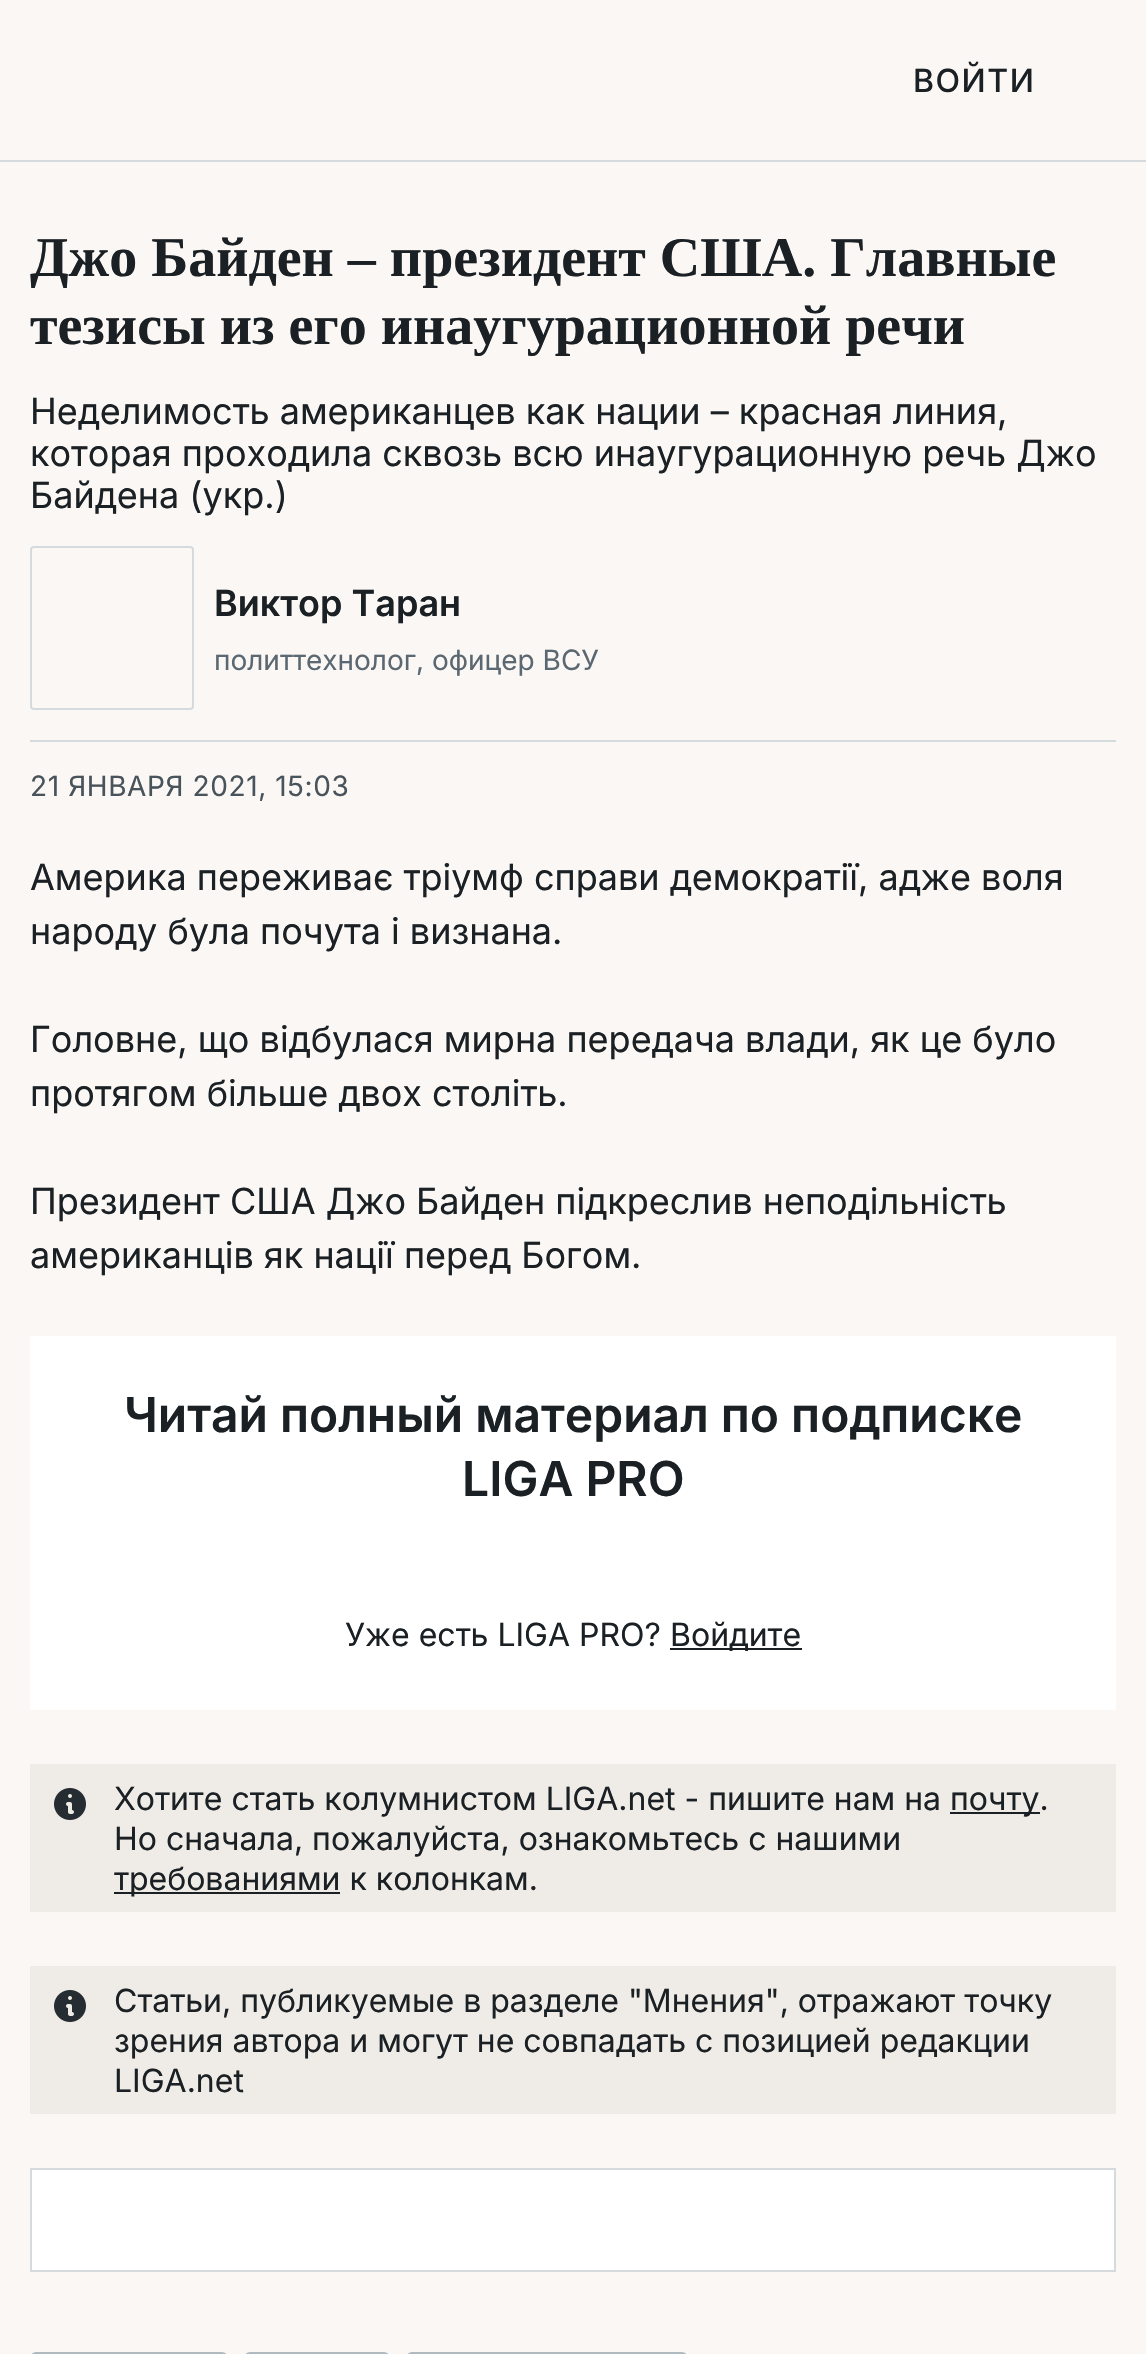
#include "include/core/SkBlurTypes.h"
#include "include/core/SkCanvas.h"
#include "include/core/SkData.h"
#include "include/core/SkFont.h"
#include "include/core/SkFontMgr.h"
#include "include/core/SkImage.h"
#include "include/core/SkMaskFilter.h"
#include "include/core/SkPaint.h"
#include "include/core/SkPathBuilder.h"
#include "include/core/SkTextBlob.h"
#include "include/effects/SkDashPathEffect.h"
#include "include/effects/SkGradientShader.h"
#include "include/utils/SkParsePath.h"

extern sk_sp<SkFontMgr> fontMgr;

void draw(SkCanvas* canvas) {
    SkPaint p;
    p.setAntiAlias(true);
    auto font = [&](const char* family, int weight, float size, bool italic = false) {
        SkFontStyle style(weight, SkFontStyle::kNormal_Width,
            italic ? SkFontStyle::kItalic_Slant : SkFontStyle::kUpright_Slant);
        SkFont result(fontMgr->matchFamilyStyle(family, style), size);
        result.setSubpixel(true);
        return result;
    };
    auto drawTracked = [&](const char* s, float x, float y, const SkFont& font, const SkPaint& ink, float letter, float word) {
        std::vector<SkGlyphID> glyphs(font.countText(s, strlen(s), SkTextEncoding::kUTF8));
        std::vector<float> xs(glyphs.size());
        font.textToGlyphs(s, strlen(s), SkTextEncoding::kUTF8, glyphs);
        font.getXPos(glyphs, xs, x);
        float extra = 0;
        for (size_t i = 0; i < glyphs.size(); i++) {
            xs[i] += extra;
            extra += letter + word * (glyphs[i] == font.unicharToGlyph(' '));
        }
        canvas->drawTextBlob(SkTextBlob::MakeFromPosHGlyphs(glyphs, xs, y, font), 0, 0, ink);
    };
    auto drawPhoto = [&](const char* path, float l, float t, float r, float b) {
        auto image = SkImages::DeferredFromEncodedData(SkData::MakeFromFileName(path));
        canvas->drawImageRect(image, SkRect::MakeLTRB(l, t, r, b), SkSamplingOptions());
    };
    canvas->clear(0xFFFAF7F4);
    p.setColor(0xFFD5DADD);
    canvas->drawRect(SkRect::MakeLTRB(0, 160, 1146, 162), p);
    auto font1 = font("Inter", 500, 32);
    p.setColor(0xFF1A2024);
    drawTracked("ВОЙТИ", 913, 92, font1, p, 1.5f, 0);
    auto font2 = font("Tinos", 700, 56);
    canvas->drawString("Джо Байден – президент США. Главные", 30, 276, font2, p);
    canvas->drawString("тезисы из его инаугурационной речи", 30, 344, font2, p);
    auto font3 = font("Inter", 400, 36);
    {
        const struct { const char* s; float x, y; } items[] = {
            {"Неделимость американцев как нации – красная линия,", 30, 424},
            {"которая проходила сквозь всю инаугурационную речь Джо", 30, 466},
            {"Байдена (укр.)", 30, 508},
        };
        for (auto [s, x, y] : items) {
            canvas->drawString(s, x, y, font3, p);
        }
    }
    p.setStyle(SkPaint::kStroke_Style);
    p.setStrokeWidth(2);
    p.setColor(0xFFD5DADD);
    canvas->drawRoundRect(SkRect::MakeLTRB(31, 547, 193, 709), 3, 3, p);
    auto font4 = font("Inter", 600, 36);
    p.setStyle(SkPaint::kFill_Style);
    p.setColor(0xFF1A2024);
    canvas->drawString("Виктор Таран", 214, 616, font4, p);
    auto font5 = font("Inter", 400, 28);
    p.setColor(0xFF5B6871);
    canvas->drawString("политтехнолог, офицер ВСУ", 214, 670, font5, p);
    p.setColor(0xFFD5DADD);
    canvas->drawRect(SkRect::MakeLTRB(30, 740, 1116, 742), p);
    p.setColor(0xFF48535B);
    drawTracked("21 ЯНВАРЯ 2021, 15:03", 30, 796, font5, p, 0.6f, 0);
    p.setColor(0xFF1A2024);
    {
        const struct { const char* s; float x, y; } items[] = {
            {"Америка переживає тріумф справи демократії, адже воля", 30, 890},
            {"народу була почута і визнана.", 30, 944},
            {"Головне, що відбулася мирна передача влади, як це було", 30, 1052},
            {"протягом більше двох століть.", 30, 1106},
            {"Президент США Джо Байден підкреслив неподільність", 30, 1214},
            {"американців як нації перед Богом.", 30, 1268},
        };
        for (auto [s, x, y] : items) {
            canvas->drawString(s, x, y, font3, p);
        }
    }
    p.setColor(0xFFFFFFFF);
    canvas->drawRect(SkRect::MakeLTRB(30, 1336, 1116, 1710), p);
    auto font6 = font("Inter", 600, 48);
    p.setColor(0xFF1A2024);
    canvas->drawString("Читай полный материал по подписке", 124, 1432, font6, p);
    canvas->drawString("LIGA PRO", 462, 1496, font6, p);
    auto font7 = font("Inter", 400, 32);
    canvas->drawString("Уже есть LIGA PRO?", 345, 1646, font7, p);
    canvas->drawRect(SkRect::MakeLTRB(670, 1648, 802, 1650), p);
    canvas->drawString("Войдите", 670, 1646, font7, p);
    p.setColor(0xFFEFEBE6);
    canvas->drawRect(SkRect::MakeLTRB(30, 1764, 1116, 1912), p);
    drawPhoto("media/1.png", 54, 1788, 86, 1820);
    p.setColor(0xFF1A2024);
    canvas->drawString("Хотите стать колумнистом LIGA.net - пишите нам на", 114, 1810, font7, p);
    canvas->drawRect(SkRect::MakeLTRB(950, 1812, 1040, 1814), p);
    canvas->drawString("почту.", 950, 1810, font7, p);
    canvas->drawString("Но сначала, пожалуйста, ознакомьтесь с нашими", 114, 1850, font7, p);
    canvas->drawRect(SkRect::MakeLTRB(114, 1892, 340, 1894), p);
    canvas->drawString("требованиями к колонкам.", 114, 1890, font7, p);
    p.setColor(0xFFEFEBE6);
    canvas->drawRect(SkRect::MakeLTRB(30, 1966, 1116, 2114), p);
    drawPhoto("media/1.png", 54, 1990, 86, 2022);
    p.setColor(0xFF1A2024);
    {
        const struct { const char* s; float x, y; } items[] = {
            {"Статьи, публикуемые в разделе \"Мнения\", отражают точку", 114, 2012},
            {"зрения автора и могут не совпадать с позицией редакции", 114, 2052},
            {"LIGA.net", 114, 2092},
        };
        for (auto [s, x, y] : items) {
            canvas->drawString(s, x, y, font7, p);
        }
    }
    p.setColor(0xFFFFFFFF);
    canvas->drawRect(SkRect::MakeLTRB(31, 2169, 1115, 2271), p);
    p.setStyle(SkPaint::kStroke_Style);
    p.setColor(0xFFD5DADD);
    canvas->drawRect(SkRect::MakeLTRB(31, 2169, 1115, 2271), p);
    p.setColor(0xFFB0BABF);
    canvas->drawRoundRect(SkRect::MakeLTRB(31, 2353, 227, 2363), 7, 7, p);
    canvas->drawRoundRect(SkRect::MakeLTRB(245, 2353, 389, 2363), 7, 7, p);
    canvas->drawRoundRect(SkRect::MakeLTRB(407, 2353, 687, 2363), 7, 7, p);
}
